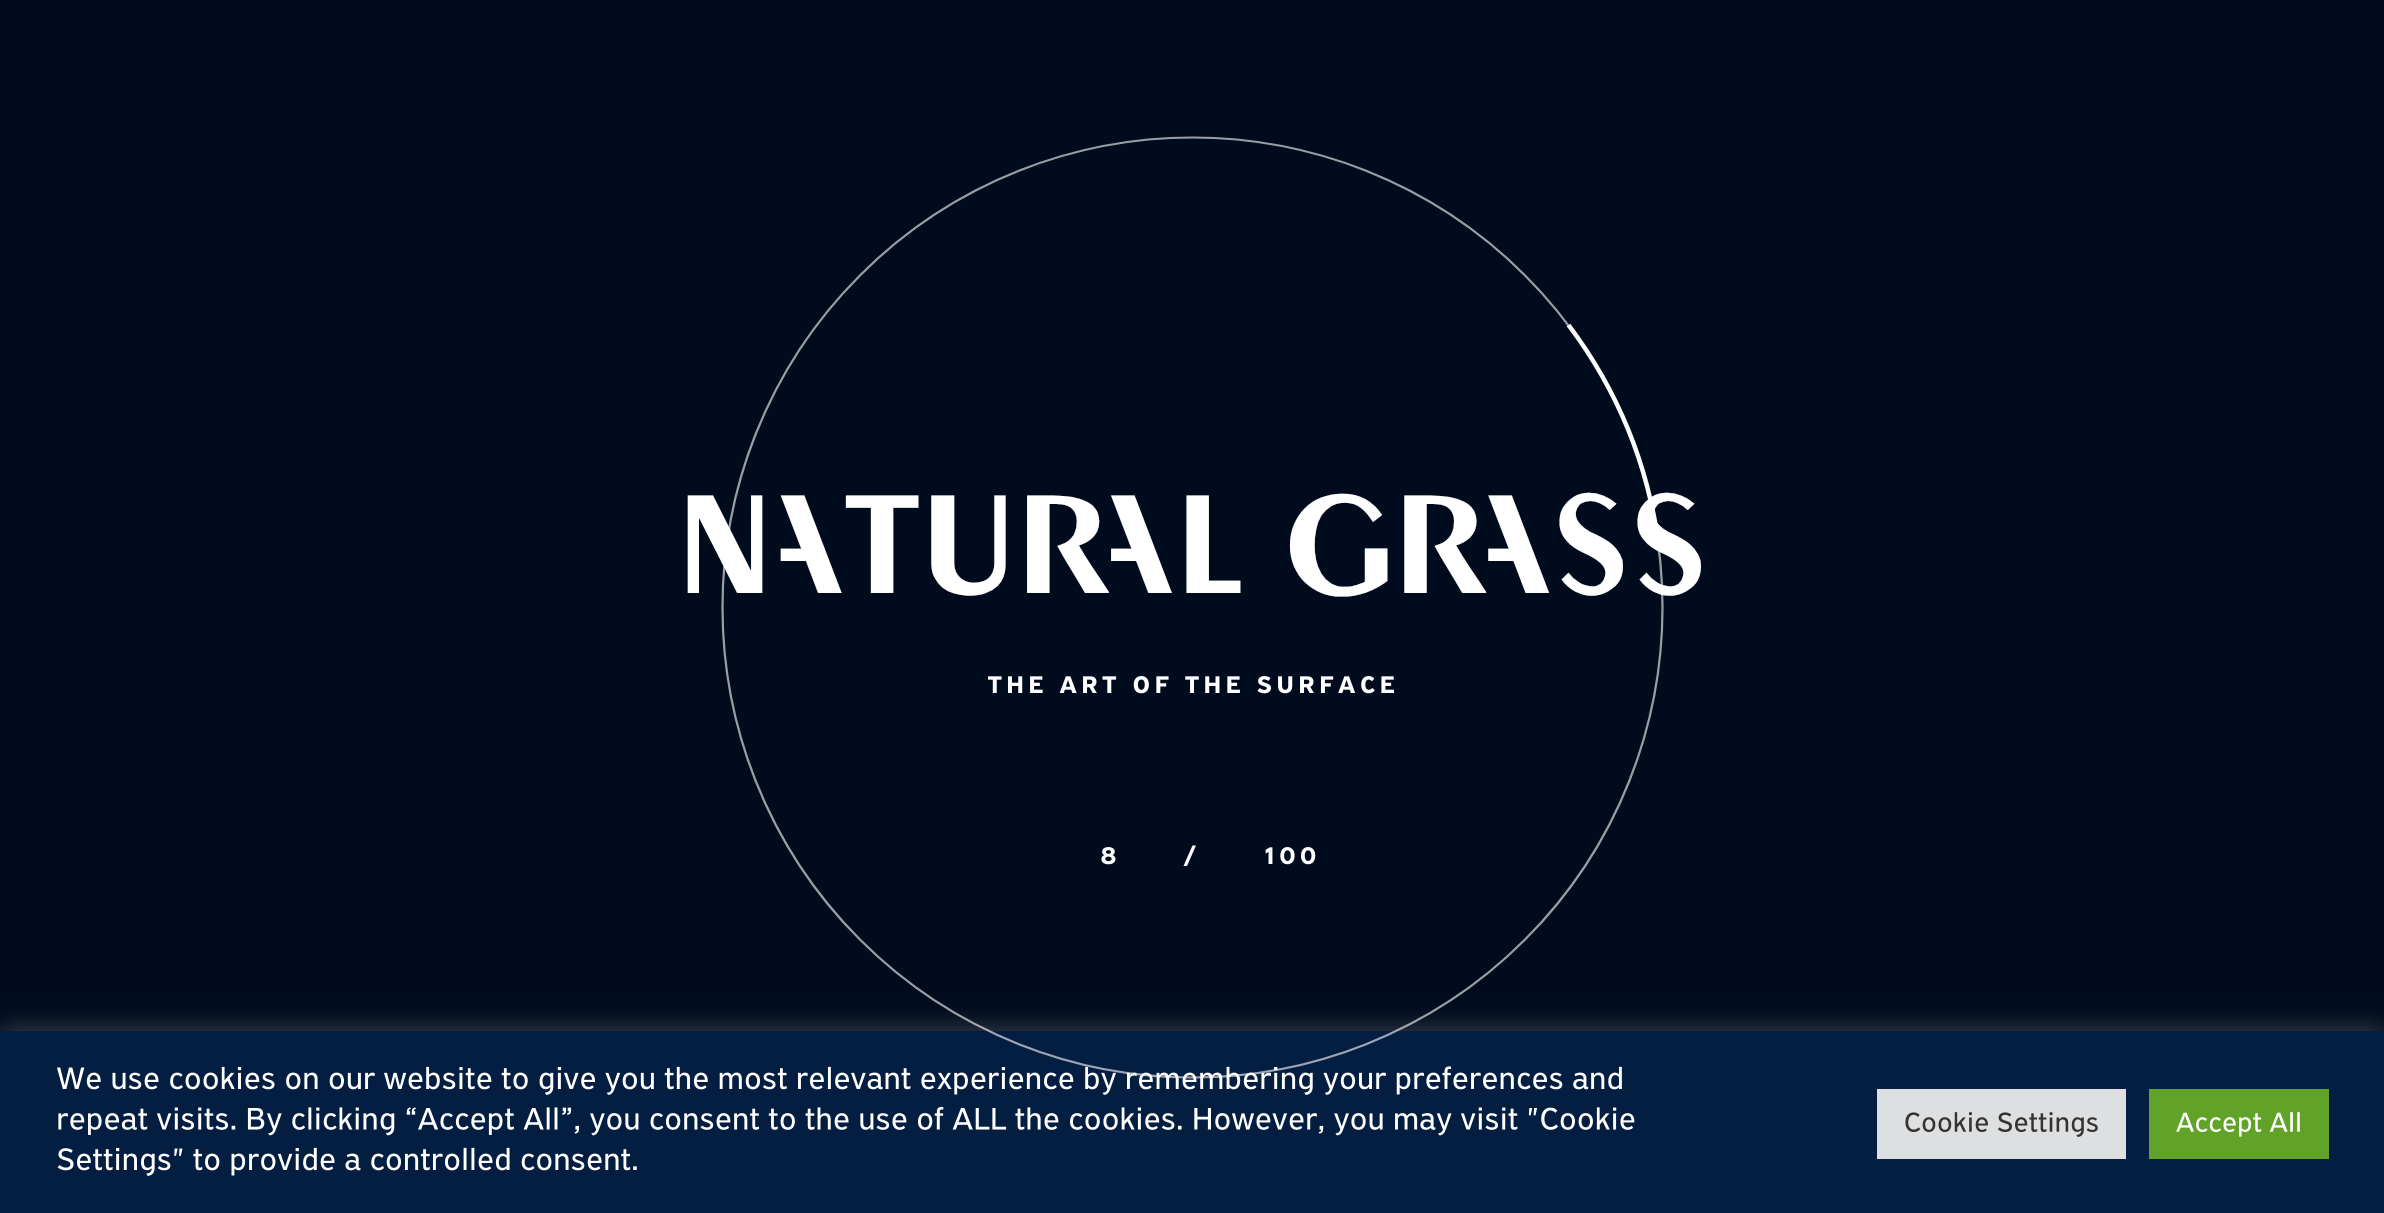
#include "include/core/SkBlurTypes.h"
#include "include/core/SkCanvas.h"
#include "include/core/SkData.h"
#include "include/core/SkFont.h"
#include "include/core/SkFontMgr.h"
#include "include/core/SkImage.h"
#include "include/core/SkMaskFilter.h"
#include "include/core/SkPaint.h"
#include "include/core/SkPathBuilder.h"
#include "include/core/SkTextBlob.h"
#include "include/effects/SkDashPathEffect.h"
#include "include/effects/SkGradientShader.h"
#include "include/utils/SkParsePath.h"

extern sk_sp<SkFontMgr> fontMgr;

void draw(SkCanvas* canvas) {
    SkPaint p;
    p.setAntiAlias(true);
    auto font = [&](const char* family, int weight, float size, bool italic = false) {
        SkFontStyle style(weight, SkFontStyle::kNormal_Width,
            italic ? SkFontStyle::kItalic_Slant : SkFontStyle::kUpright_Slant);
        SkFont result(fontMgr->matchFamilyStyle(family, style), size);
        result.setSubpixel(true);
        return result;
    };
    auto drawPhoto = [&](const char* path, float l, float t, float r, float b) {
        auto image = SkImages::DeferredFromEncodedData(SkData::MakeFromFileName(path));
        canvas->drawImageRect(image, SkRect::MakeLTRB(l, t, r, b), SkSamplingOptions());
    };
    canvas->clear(0xFF000C1E);
    auto font1 = font("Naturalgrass", 400, 150.5f);
    p.setColor(0xFFFFFFFF);
    canvas->drawString("Natural Grass", 677, 593, font1, p);
    drawPhoto("media/1.png", 988, 676, 1394, 694);
    drawPhoto("media/2.png", 1101, 847, 1116, 865);
    canvas->drawPath(SkPathBuilder().moveTo(1183.5f, 866).lineTo(1192.5f, 845.5f).lineTo(1196, 845.5f).lineTo(1187, 866).close().detach(), p);
    drawPhoto("media/3.png", 1265, 847, 1316, 865);
    p.setColor(0x4DACABAB);
    p.setMaskFilter(SkMaskFilter::MakeBlur(kNormal_SkBlurStyle, 11));
    canvas->drawRect(SkRect::MakeLTRB(0, 1028, 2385, 1213), p);
    p.setMaskFilter(nullptr);
    p.setColor(0xFF041E42);
    canvas->drawRect(SkRect::MakeLTRB(0, 1031, 2384, 1213), p);
    drawPhoto("media/4.png", 57, 1066, 1622, 1095);
    p.setStyle(SkPaint::kStroke_Style);
    p.setStrokeWidth(2.2f);
    p.setColor(0x99FFFFFF);
    canvas->drawCircle(1192.5f, 607.5f, 470, p);
    p.setStrokeWidth(4.5f);
    p.setColor(0xFFFFFFFF);
    canvas->drawPath(SkPathBuilder().moveTo(1568.5f, 325).cubicTo(1616, 388, 1648, 463.5f, 1659, 547).detach(), p);
    drawPhoto("media/5.png", 58, 1106, 1635, 1136);
    drawPhoto("media/6.png", 57, 1147, 637, 1176);
    p.setStyle(SkPaint::kFill_Style);
    p.setColor(0xFFDEDFE0);
    canvas->drawRect(SkRect::MakeLTRB(1877, 1089, 2126, 1159), p);
    drawPhoto("media/7.png", 1905, 1112, 2098, 1137);
    p.setColor(0xFF61A229);
    canvas->drawRect(SkRect::MakeLTRB(2149, 1089, 2329, 1159), p);
    drawPhoto("media/8.png", 2176, 1112, 2300, 1137);
}
